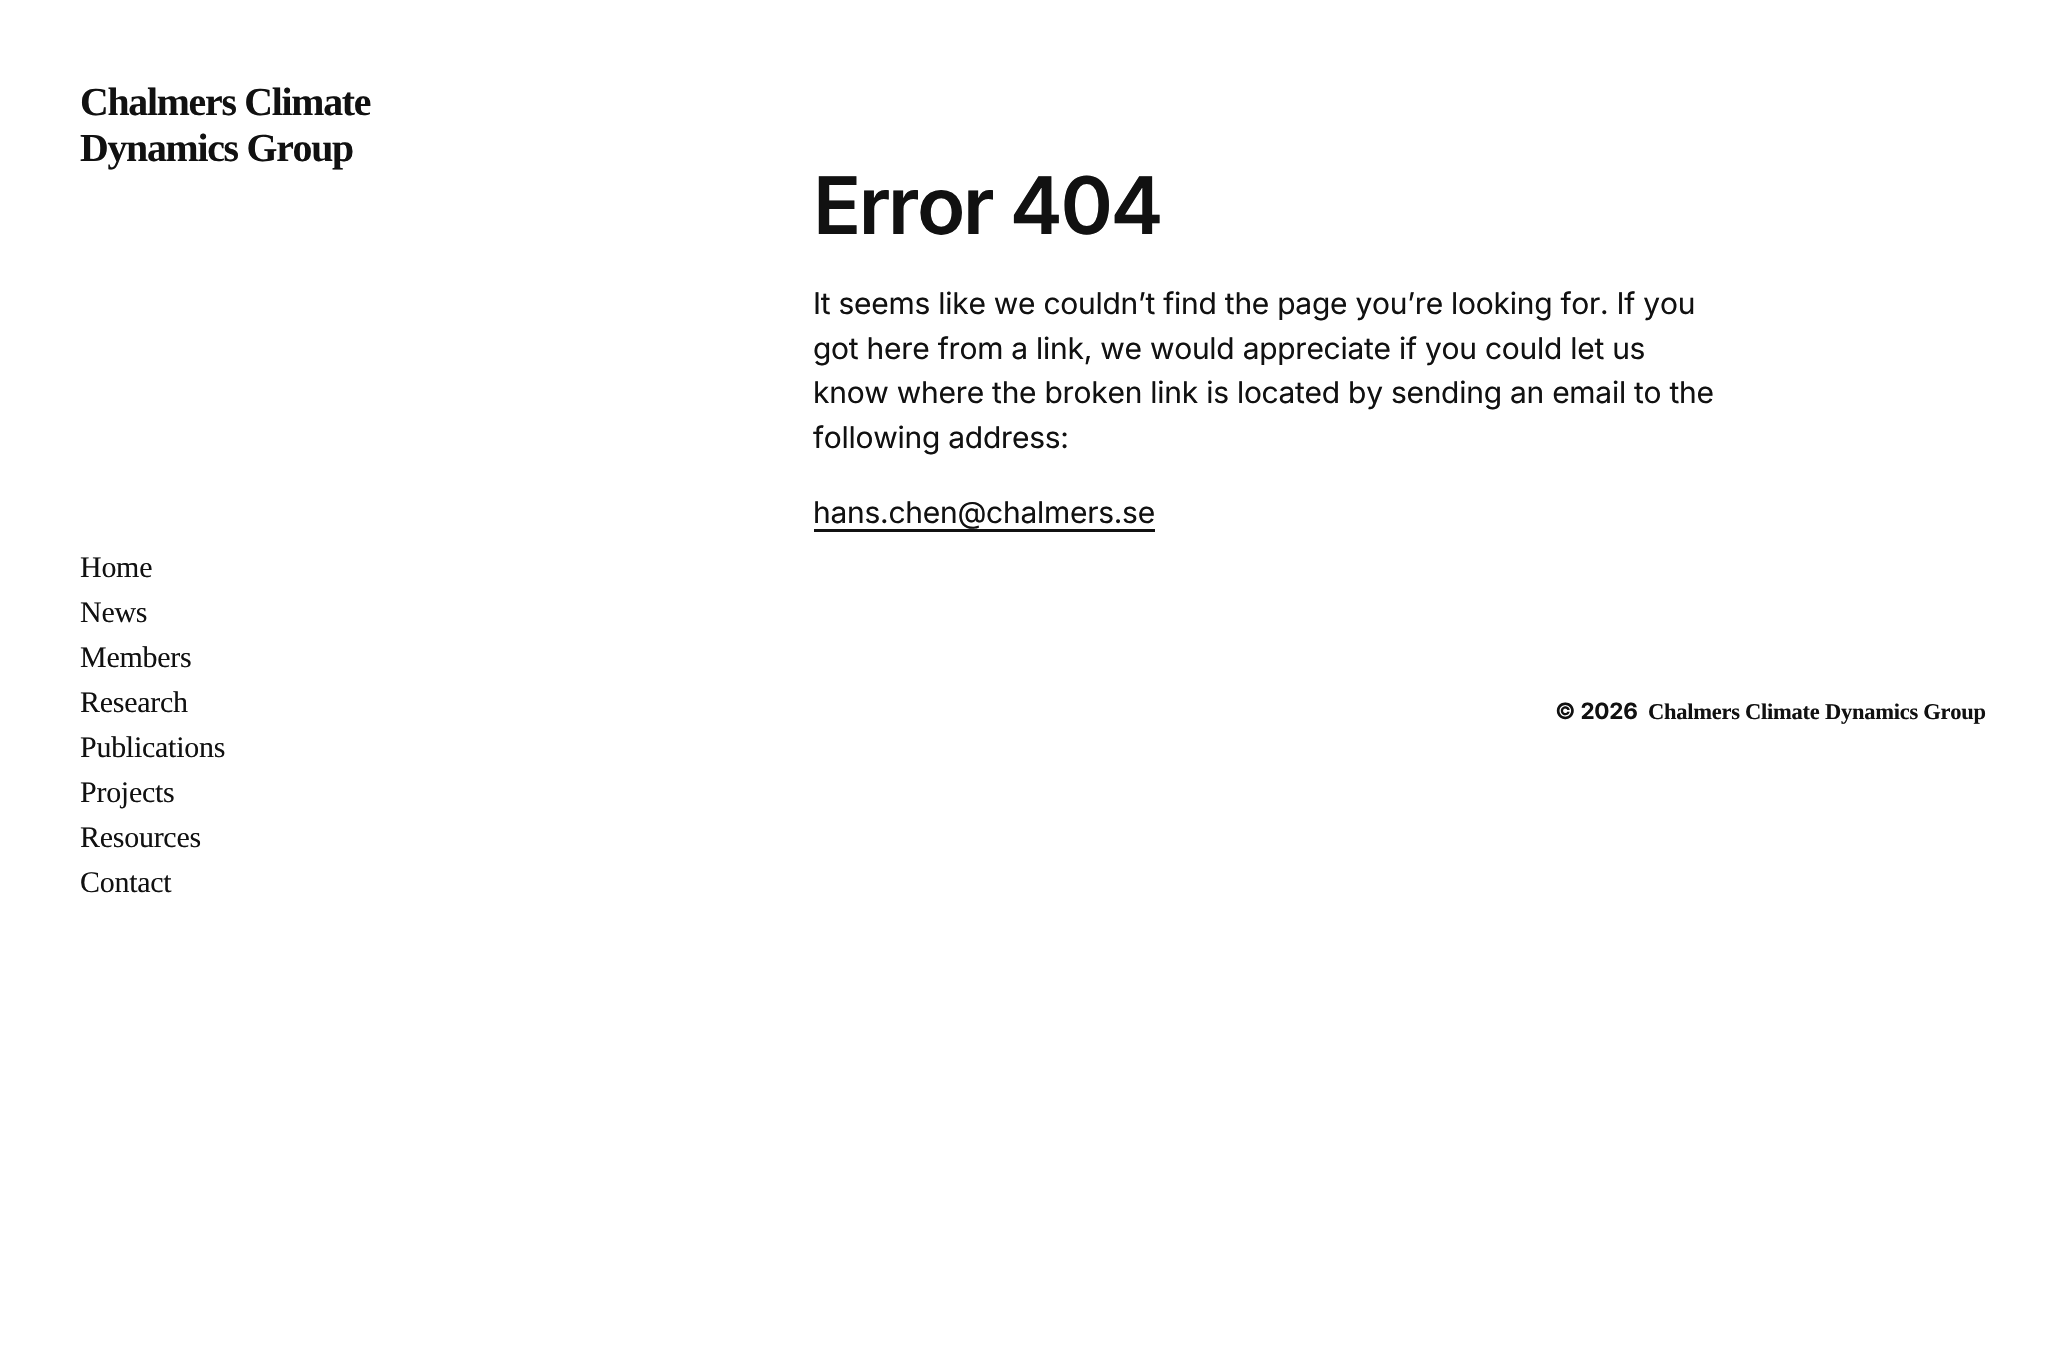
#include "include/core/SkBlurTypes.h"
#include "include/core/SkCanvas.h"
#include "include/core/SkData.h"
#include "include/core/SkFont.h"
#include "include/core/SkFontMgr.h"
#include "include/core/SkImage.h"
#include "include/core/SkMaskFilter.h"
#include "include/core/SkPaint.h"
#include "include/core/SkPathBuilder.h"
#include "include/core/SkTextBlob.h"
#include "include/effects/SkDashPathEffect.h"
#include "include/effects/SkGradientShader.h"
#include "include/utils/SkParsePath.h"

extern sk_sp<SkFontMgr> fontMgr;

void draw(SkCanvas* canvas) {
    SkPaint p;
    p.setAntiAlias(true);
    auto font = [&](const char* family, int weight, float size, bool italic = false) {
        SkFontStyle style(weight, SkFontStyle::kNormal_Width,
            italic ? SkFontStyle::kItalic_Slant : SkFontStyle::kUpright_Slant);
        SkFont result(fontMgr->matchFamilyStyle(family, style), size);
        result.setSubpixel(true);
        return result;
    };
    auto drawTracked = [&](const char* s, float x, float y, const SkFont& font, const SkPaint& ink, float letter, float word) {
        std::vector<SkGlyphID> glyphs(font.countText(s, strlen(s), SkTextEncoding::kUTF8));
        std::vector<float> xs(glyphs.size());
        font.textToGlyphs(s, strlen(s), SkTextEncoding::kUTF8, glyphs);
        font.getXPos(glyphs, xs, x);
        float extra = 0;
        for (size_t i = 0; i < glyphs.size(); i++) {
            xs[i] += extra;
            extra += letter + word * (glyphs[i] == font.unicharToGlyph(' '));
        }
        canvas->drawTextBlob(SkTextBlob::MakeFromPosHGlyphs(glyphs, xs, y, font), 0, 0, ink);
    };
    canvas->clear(0xFFFFFFFF);
    auto font1 = font("Liberation Serif", 700, 39.75f);
    p.setColor(0xFF111111);
    drawTracked("Chalmers Climate", 80, 115, font1, p, -1.25f, 0);
    drawTracked("Dynamics Group", 80, 161, font1, p, -1.25f, 0);
    auto font2 = font("Liberation Serif", 400, 29.95f);
    {
        const struct { const char* s; float x, y; } items[] = {
            {"Home", 80, 577},
            {"News", 80, 622},
            {"Members", 80, 667},
            {"Research", 80, 712},
            {"Publications", 80, 757},
            {"Projects", 80, 802},
            {"Resources", 80, 847},
            {"Contact", 80, 892},
        };
        for (auto [s, x, y] : items) {
            drawTracked(s, x, y, font2, p, -0.25f, 0);
        }
    }
    auto font3 = font("Inter", 600, 79.5f);
    drawTracked("Error 404", 813, 234, font3, p, -2.4f, 0);
    auto font4 = font("Inter", 400, 29.95f);
    {
        const struct { const char* s; float x, y; } items[] = {
            {"It seems like we couldn’t find the page you’re looking for. If you", 813, 314},
            {"got here from a link, we would appreciate if you could let us", 813, 359},
            {"know where the broken link is located by sending an email to the", 813, 403},
            {"following address:", 813, 448},
            {"hans.chen@chalmers.se", 813, 523},
        };
        for (auto [s, x, y] : items) {
            drawTracked(s, x, y, font4, p, -0.25f, 0);
        }
    }
    canvas->drawRect(SkRect::MakeLTRB(814, 529, 1155, 532), p);
    auto font5 = font("Inter", 700, 22.5f);
    drawTracked("© 2026", 1555, 719, font5, p, -0.25f, 0);
    auto font6 = font("Liberation Serif", 700, 22.5f);
    drawTracked("Chalmers Climate Dynamics Group", 1648, 719, font6, p, -0.25f, 0);
}
